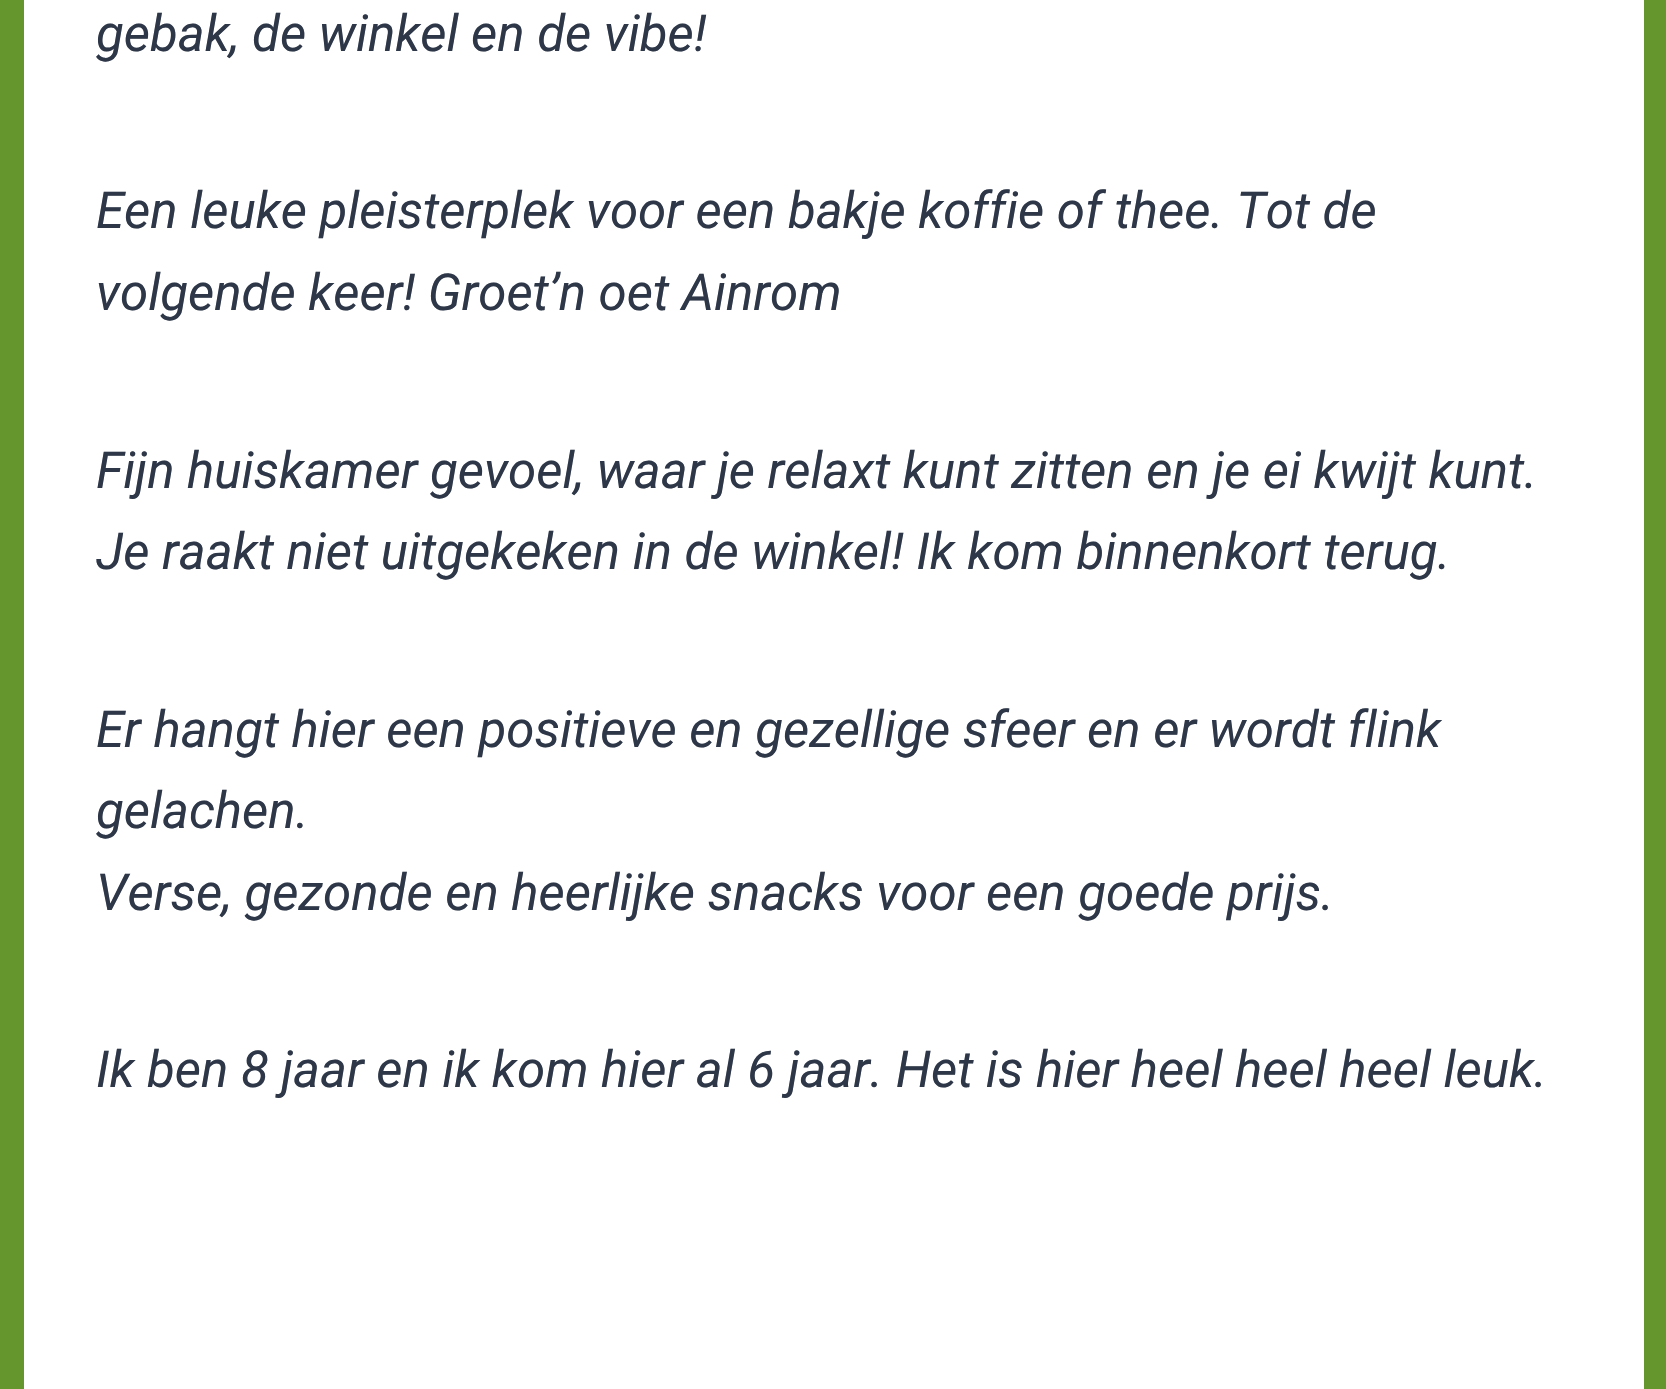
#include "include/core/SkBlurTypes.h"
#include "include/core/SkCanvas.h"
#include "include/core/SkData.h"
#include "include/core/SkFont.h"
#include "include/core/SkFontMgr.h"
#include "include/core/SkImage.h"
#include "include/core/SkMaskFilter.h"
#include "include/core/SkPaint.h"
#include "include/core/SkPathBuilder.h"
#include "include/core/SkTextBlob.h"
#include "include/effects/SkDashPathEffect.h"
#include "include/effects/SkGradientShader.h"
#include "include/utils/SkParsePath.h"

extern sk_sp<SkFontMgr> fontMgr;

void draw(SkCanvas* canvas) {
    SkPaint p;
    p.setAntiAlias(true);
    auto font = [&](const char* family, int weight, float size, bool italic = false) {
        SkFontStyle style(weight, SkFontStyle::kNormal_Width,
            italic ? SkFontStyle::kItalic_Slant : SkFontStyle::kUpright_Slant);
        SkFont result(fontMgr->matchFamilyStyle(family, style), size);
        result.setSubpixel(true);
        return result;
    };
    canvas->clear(0xFF65952D);
    p.setColor(0xFFFFFFFF);
    canvas->drawRect(SkRect::MakeLTRB(24, 0, 1644, 1389), p);
    auto font1 = font("Roboto", 400, 51, true);
    p.setColor(0xFF2D3748);
    {
        const struct { const char* s; float x, y; } items[] = {
            {"gebak, de winkel en de vibe!", 96, 51},
            {"Een leuke pleisterplek voor een bakje koffie of thee. Tot de", 96, 228},
            {"volgende keer! Groet’n oet Ainrom", 96, 310},
            {"Fijn huiskamer gevoel, waar je relaxt kunt zitten en je ei kwijt kunt.", 96, 488},
            {"Je raakt niet uitgekeken in de winkel! Ik kom binnenkort terug.", 96, 569},
            {"Er hangt hier een positieve en gezellige sfeer en er wordt flink", 96, 747},
            {"gelachen.", 96, 828},
            {"Verse, gezonde en heerlijke snacks voor een goede prijs.", 96, 910},
            {"Ik ben 8 jaar en ik kom hier al 6 jaar. Het is hier heel heel heel leuk.", 96, 1087},
        };
        for (auto [s, x, y] : items) {
            canvas->drawString(s, x, y, font1, p);
        }
    }
}
